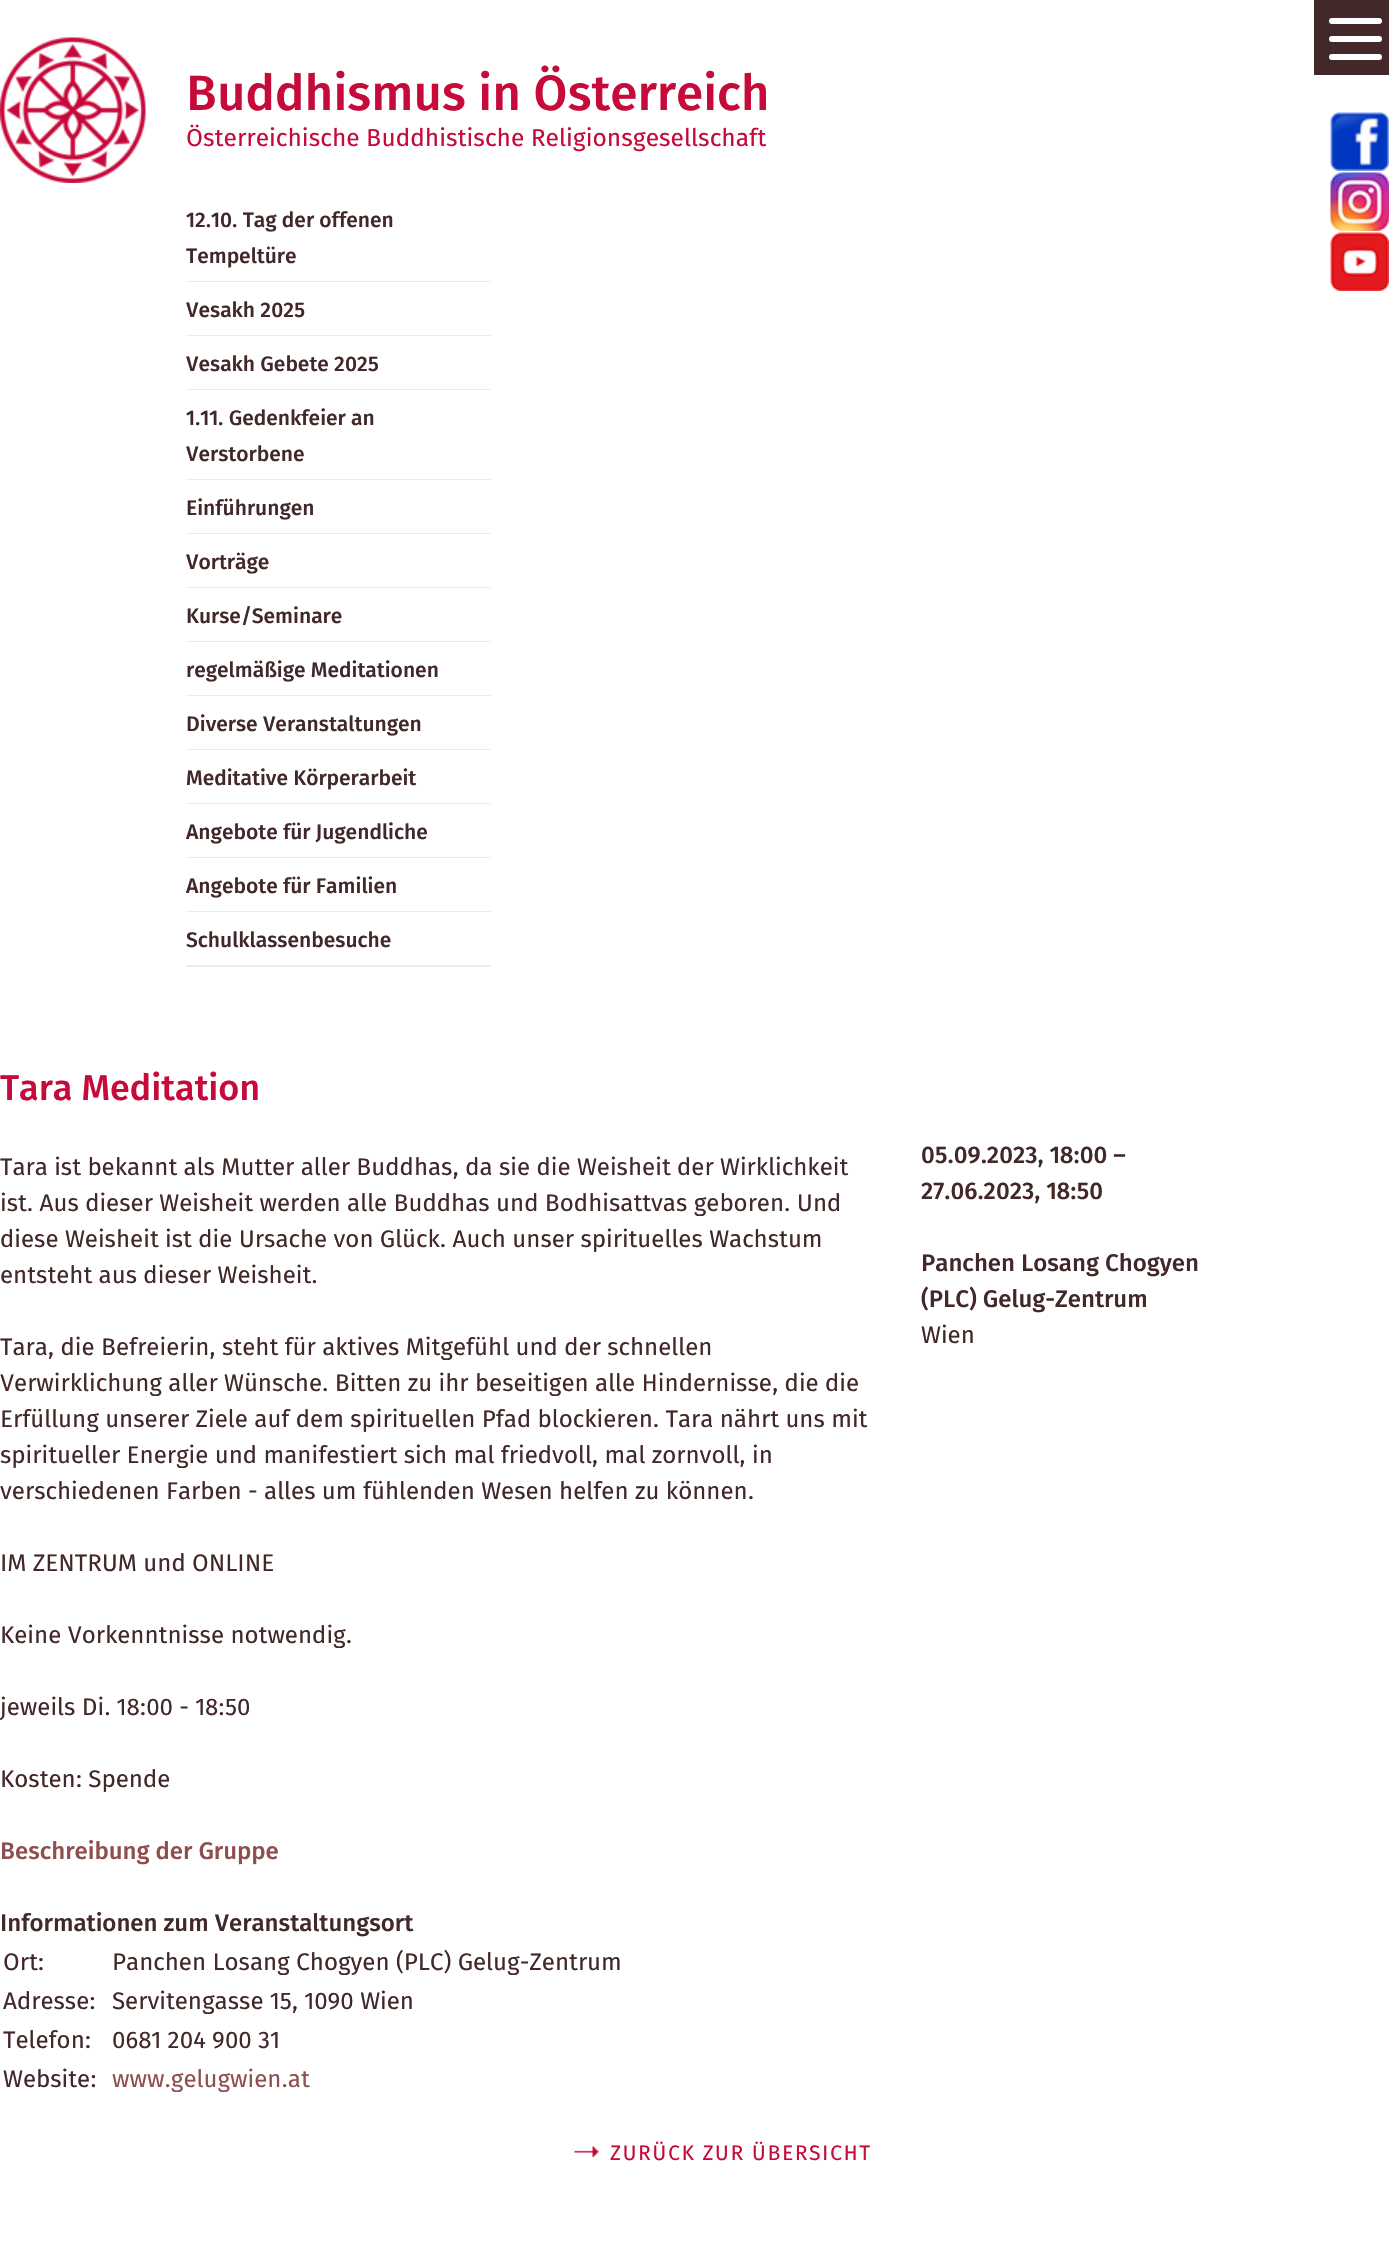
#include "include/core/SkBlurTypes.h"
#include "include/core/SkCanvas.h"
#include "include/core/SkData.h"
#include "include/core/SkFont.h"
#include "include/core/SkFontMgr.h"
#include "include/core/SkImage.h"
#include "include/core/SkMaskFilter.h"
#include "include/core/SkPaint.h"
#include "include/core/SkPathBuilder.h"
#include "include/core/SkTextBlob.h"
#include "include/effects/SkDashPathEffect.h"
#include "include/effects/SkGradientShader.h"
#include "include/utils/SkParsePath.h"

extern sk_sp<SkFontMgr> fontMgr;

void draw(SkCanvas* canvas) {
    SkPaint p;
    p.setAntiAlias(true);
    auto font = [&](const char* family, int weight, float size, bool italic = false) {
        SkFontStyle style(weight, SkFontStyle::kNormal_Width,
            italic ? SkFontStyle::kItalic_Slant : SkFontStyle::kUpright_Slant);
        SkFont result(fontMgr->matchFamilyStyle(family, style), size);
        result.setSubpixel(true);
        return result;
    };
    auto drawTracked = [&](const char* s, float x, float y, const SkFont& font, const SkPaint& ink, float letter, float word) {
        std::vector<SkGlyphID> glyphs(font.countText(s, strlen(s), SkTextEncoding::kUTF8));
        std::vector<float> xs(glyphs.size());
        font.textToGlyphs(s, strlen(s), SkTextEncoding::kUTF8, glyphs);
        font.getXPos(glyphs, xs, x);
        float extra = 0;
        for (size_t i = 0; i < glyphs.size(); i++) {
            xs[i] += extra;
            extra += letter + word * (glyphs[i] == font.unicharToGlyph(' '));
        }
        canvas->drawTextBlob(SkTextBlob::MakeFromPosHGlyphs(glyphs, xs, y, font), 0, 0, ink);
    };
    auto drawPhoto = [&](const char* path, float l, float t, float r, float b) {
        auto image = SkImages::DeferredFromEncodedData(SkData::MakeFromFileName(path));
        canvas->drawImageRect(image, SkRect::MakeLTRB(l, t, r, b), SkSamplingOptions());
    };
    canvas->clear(0xFFFFFFFF);
    p.setColor(0xFF422829);
    canvas->drawRect(SkRect::MakeLTRB(1314, 0, 1389, 75), p);
    p.setColor(0xFFFFFFFF);
    canvas->drawRoundRect(SkRect::MakeLTRB(1329, 18, 1382, 24), 3, 3, p);
    canvas->drawRoundRect(SkRect::MakeLTRB(1329, 36, 1382, 42), 3, 3, p);
    canvas->drawRoundRect(SkRect::MakeLTRB(1329, 54, 1382, 60), 3, 3, p);
    drawPhoto("media/1.png", 0, 37, 146, 183);
    auto font1 = font("Fira Sans", 500, 49.5f);
    p.setColor(0xFFC60A39);
    canvas->drawString("Buddhismus in Österreich", 186, 110, font1, p);
    auto font2 = font("Fira Sans", 400, 24.45f);
    canvas->drawString("Österreichische Buddhistische Religionsgesellschaft", 186, 146, font2, p);
    drawPhoto("media/2.png", 1330, 112, 1389, 171);
    drawPhoto("media/3.png", 1330, 172, 1389, 231);
    p.setColor(0xFFEFECE7);
    canvas->drawRect(SkRect::MakeLTRB(186, 281, 491, 282), p);
    auto font3 = font("Fira Sans", 500, 21);
    p.setColor(0xFF422829);
    canvas->drawString("12.10. Tag der offenen", 186, 227, font3, p);
    canvas->drawString("Tempeltüre", 186, 263, font3, p);
    p.setColor(0xFFEFECE7);
    canvas->drawRect(SkRect::MakeLTRB(186, 335, 491, 336), p);
    p.setColor(0xFF422829);
    canvas->drawString("Vesakh 2025", 186, 317, font3, p);
    p.setColor(0xFFEFECE7);
    canvas->drawRect(SkRect::MakeLTRB(186, 389, 491, 390), p);
    p.setColor(0xFF422829);
    canvas->drawString("Vesakh Gebete 2025", 186, 371, font3, p);
    p.setColor(0xFFEFECE7);
    canvas->drawRect(SkRect::MakeLTRB(186, 479, 491, 480), p);
    p.setColor(0xFF422829);
    canvas->drawString("1.11. Gedenkfeier an", 186, 425, font3, p);
    canvas->drawString("Verstorbene", 186, 461, font3, p);
    p.setColor(0xFFEFECE7);
    canvas->drawRect(SkRect::MakeLTRB(186, 533, 491, 534), p);
    p.setColor(0xFF422829);
    canvas->drawString("Einführungen", 186, 515, font3, p);
    p.setColor(0xFFEFECE7);
    canvas->drawRect(SkRect::MakeLTRB(186, 587, 491, 588), p);
    p.setColor(0xFF422829);
    canvas->drawString("Vorträge", 186, 569, font3, p);
    p.setColor(0xFFEFECE7);
    canvas->drawRect(SkRect::MakeLTRB(186, 641, 491, 642), p);
    p.setColor(0xFF422829);
    canvas->drawString("Kurse/Seminare", 186, 623, font3, p);
    p.setColor(0xFFEFECE7);
    canvas->drawRect(SkRect::MakeLTRB(186, 695, 491, 696), p);
    p.setColor(0xFF422829);
    canvas->drawString("regelmäßige Meditationen", 186, 677, font3, p);
    p.setColor(0xFFEFECE7);
    canvas->drawRect(SkRect::MakeLTRB(186, 749, 491, 750), p);
    p.setColor(0xFF422829);
    canvas->drawString("Diverse Veranstaltungen", 186, 731, font3, p);
    p.setColor(0xFFEFECE7);
    canvas->drawRect(SkRect::MakeLTRB(186, 803, 491, 804), p);
    p.setColor(0xFF422829);
    canvas->drawString("Meditative Körperarbeit", 186, 785, font3, p);
    p.setColor(0xFFEFECE7);
    canvas->drawRect(SkRect::MakeLTRB(186, 857, 491, 858), p);
    p.setColor(0xFF422829);
    canvas->drawString("Angebote für Jugendliche", 186, 839, font3, p);
    p.setColor(0xFFEFECE7);
    canvas->drawRect(SkRect::MakeLTRB(186, 911, 491, 912), p);
    p.setColor(0xFF422829);
    canvas->drawString("Angebote für Familien", 186, 893, font3, p);
    p.setColor(0xFFEFECE7);
    canvas->drawRect(SkRect::MakeLTRB(186, 965, 491, 967), p);
    p.setColor(0xFF422829);
    canvas->drawString("Schulklassenbesuche", 186, 947, font3, p);
    auto font4 = font("Fira Sans", 500, 36);
    p.setColor(0xFFC60A39);
    canvas->drawString("Tara Meditation", 0, 1100, font4, p);
    auto font5 = font("Fira Sans", 400, 24);
    p.setColor(0xFF422829);
    {
        const struct { const char* s; float x, y; } items[] = {
            {"Tara ist bekannt als Mutter aller Buddhas, da sie die Weisheit der Wirklichkeit", 0, 1175},
            {"ist. Aus dieser Weisheit werden alle Buddhas und Bodhisattvas geboren. Und", 0, 1211},
            {"diese Weisheit ist die Ursache von Glück. Auch unser spirituelles Wachstum", 0, 1247},
            {"entsteht aus dieser Weisheit.", 0, 1283},
            {"Tara, die Befreierin, steht für aktives Mitgefühl und der schnellen", 0, 1355},
            {"Verwirklichung aller Wünsche. Bitten zu ihr beseitigen alle Hindernisse, die die", 0, 1391},
            {"Erfüllung unserer Ziele auf dem spirituellen Pfad blockieren. Tara nährt uns mit", 0, 1427},
            {"spiritueller Energie und manifestiert sich mal friedvoll, mal zornvoll, in", 0, 1463},
            {"verschiedenen Farben - alles um fühlenden Wesen helfen zu können.", 0, 1499},
            {"IM ZENTRUM und ONLINE", 0, 1571},
            {"Keine Vorkenntnisse notwendig.", 0, 1643},
            {"jeweils Di. 18:00 - 18:50", 0, 1715},
            {"Kosten: Spende", 0, 1787},
        };
        for (auto [s, x, y] : items) {
            canvas->drawString(s, x, y, font5, p);
        }
    }
    auto font6 = font("Fira Sans", 500, 24);
    p.setColor(0xFF8F4F4F);
    canvas->drawString("Beschreibung der Gruppe", 0, 1859, font6, p);
    p.setColor(0xFF422829);
    canvas->drawString("Informationen zum Veranstaltungsort", 0, 1931, font6, p);
    {
        const struct { const char* s; float x, y; } items[] = {
            {"Ort:", 3, 1970},
            {"Panchen Losang Chogyen (PLC) Gelug-Zentrum", 112, 1970},
            {"Adresse:", 3, 2009},
            {"Servitengasse 15, 1090 Wien", 112, 2009},
            {"Telefon:", 3, 2048},
            {"0681 204 900 31", 112, 2048},
            {"Website:", 3, 2087},
        };
        for (auto [s, x, y] : items) {
            canvas->drawString(s, x, y, font5, p);
        }
    }
    p.setColor(0xFF8F4F4F);
    canvas->drawString("www.gelugwien.at", 112, 2087, font5, p);
    drawPhoto("media/4.png", 574, 2146, 599, 2157);
    auto font7 = font("Fira Sans", 400, 21);
    p.setColor(0xFFC60A39);
    drawTracked("ZURÜCK ZUR ÜBERSICHT", 610, 2160, font7, p, 1.5f, 0);
    p.setColor(0xFF422829);
    {
        const struct { const char* s; float x, y; } items[] = {
            {"05.09.2023, 18:00 –", 921, 1163},
            {"27.06.2023, 18:50", 921, 1199},
            {"Panchen Losang Chogyen", 921, 1271},
            {"(PLC) Gelug-Zentrum", 921, 1307},
        };
        for (auto [s, x, y] : items) {
            canvas->drawString(s, x, y, font6, p);
        }
    }
    canvas->drawString("Wien", 921, 1343, font5, p);
    drawPhoto("media/5.png", 1330, 232, 1389, 291);
}
